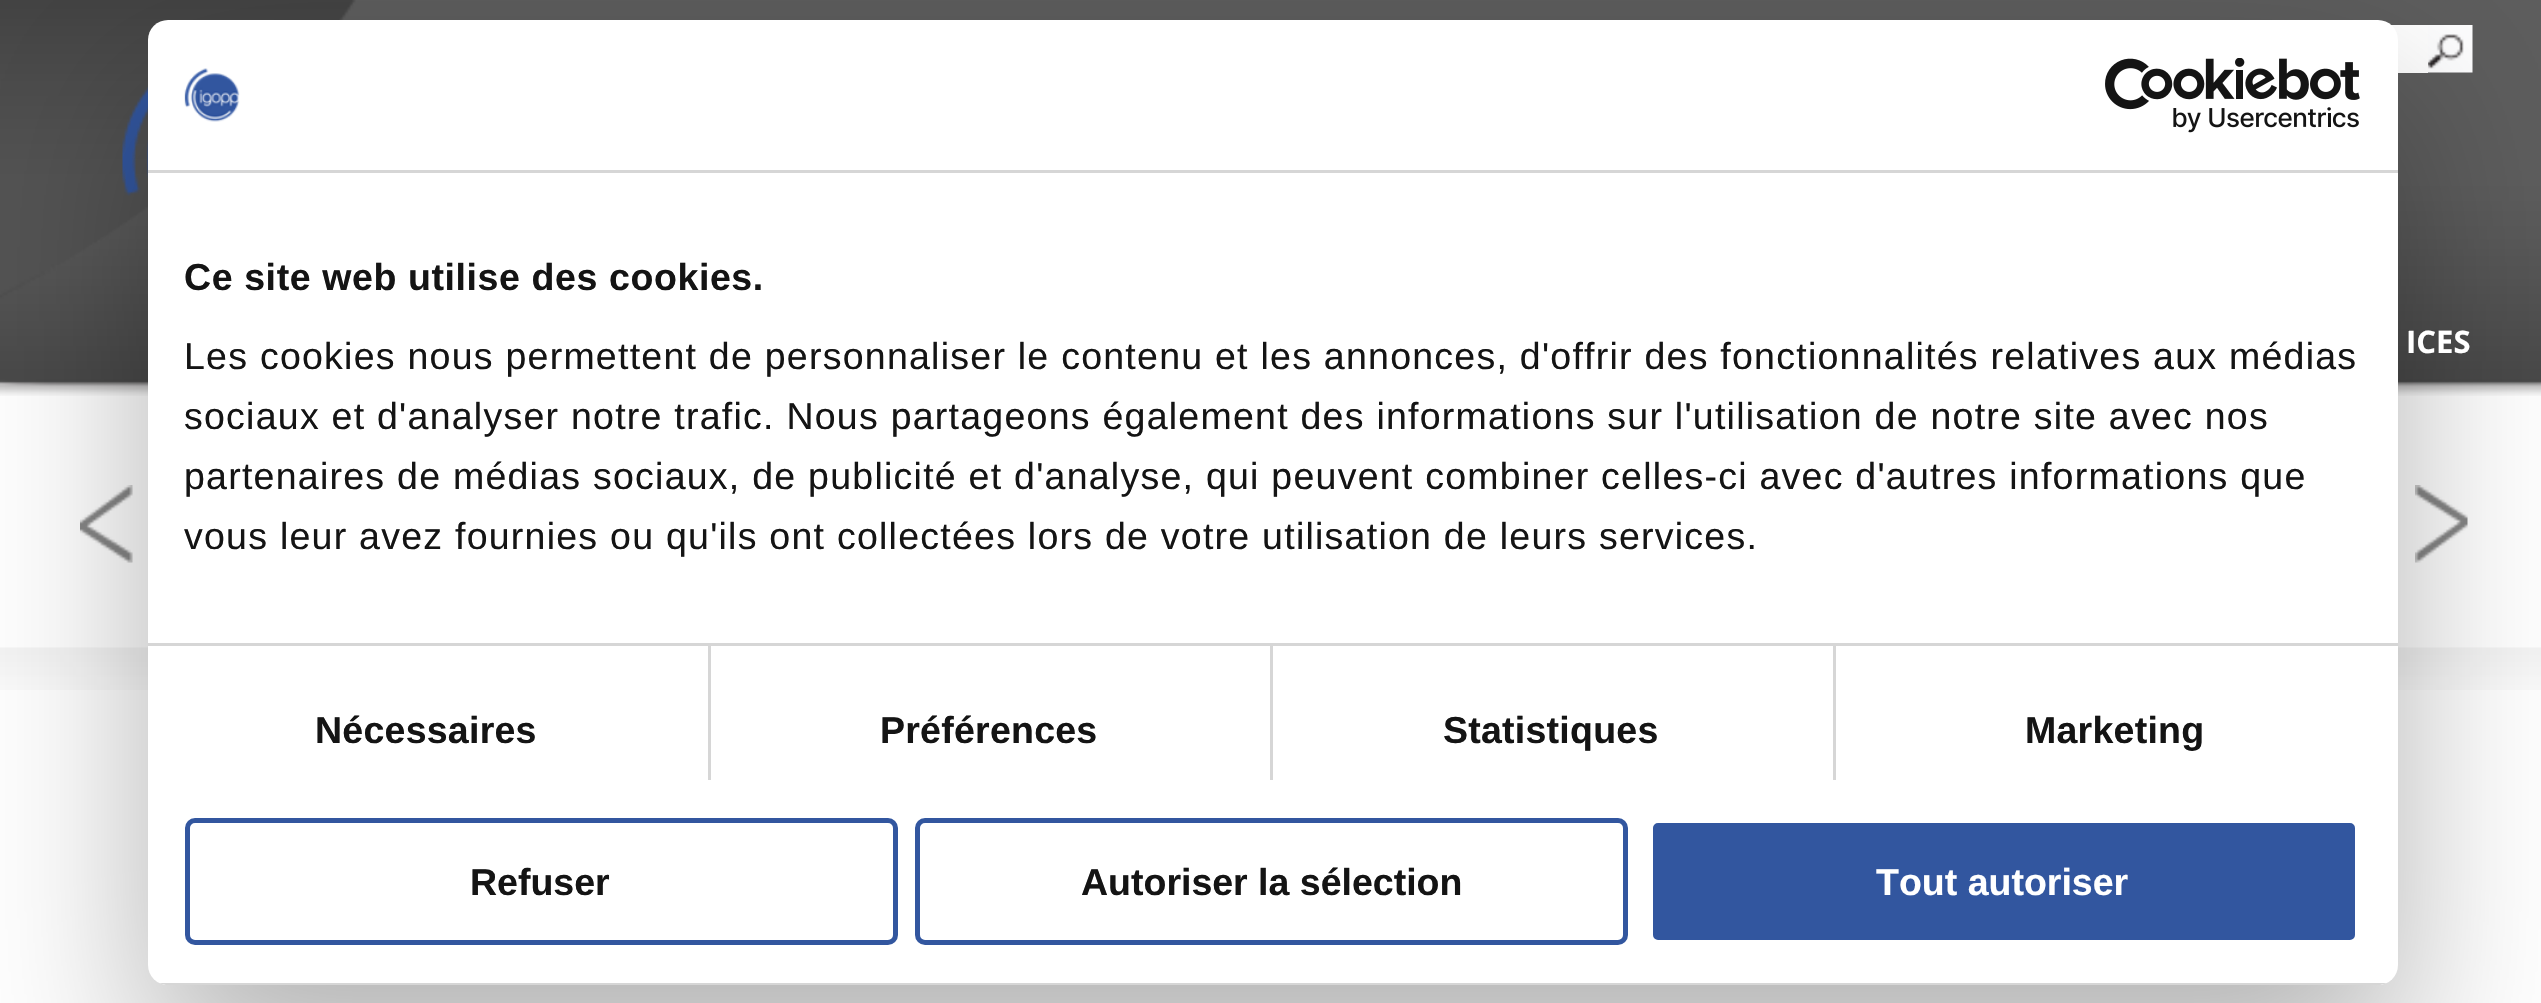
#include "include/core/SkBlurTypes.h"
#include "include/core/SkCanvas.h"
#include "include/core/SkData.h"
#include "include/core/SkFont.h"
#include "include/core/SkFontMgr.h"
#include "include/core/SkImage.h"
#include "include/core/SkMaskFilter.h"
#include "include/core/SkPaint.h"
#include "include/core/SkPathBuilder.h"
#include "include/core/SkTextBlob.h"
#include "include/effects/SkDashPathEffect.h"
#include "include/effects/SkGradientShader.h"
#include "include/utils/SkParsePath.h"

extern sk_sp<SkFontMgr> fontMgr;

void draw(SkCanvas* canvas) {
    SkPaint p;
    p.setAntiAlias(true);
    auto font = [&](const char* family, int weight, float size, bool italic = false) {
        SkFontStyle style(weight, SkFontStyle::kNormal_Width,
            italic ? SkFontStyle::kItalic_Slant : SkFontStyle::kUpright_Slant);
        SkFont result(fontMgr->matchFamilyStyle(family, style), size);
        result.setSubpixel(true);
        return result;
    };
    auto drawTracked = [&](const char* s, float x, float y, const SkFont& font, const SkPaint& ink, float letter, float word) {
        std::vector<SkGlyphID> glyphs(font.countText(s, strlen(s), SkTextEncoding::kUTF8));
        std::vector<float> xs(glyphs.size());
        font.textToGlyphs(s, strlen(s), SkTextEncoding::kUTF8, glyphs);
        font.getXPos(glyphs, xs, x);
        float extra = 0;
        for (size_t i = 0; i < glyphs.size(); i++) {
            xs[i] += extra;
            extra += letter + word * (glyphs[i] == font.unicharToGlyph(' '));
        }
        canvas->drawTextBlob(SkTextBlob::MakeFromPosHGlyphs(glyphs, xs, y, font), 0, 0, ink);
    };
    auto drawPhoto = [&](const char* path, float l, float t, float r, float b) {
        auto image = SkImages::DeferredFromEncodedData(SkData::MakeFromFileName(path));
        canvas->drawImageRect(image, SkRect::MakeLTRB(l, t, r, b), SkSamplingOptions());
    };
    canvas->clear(0xFFFFFFFF);
    drawPhoto("media/3.png", 0, 0, 2541, 396);
    drawPhoto("media/4.png", 2428, 25, 2473, 73);
    p.setColor(0xFFFFFFFF);
    canvas->drawRect(SkRect::MakeLTRB(2391, 25, 2428, 73), p);
    drawPhoto("media/5.png", 122, 86, 148, 196);
    drawPhoto("media/6.png", 80, 485, 133, 563);
    drawPhoto("media/7.png", 2415, 485, 2468, 563);
    drawPhoto("media/8.png", 0, 647, 2541, 690);
    p.setColor(0x4D000000);
    p.setMaskFilter(SkMaskFilter::MakeBlur(kNormal_SkBlurStyle, 85));
    canvas->drawRoundRect(SkRect::MakeLTRB(148, 100, 2398, 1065), 20, 20, p);
    p.setMaskFilter(nullptr);
    p.setColor(0xFFFFFFFF);
    canvas->drawRoundRect(SkRect::MakeLTRB(148, 20, 2398, 985), 20, 20, p);
    p.setColor(0xFFD6D6D6);
    canvas->drawRect(SkRect::MakeLTRB(148, 170, 2398, 173), p);
    drawPhoto("media/1.png", 184, 68, 240, 122);
    drawPhoto("media/2.png", 2105, 58, 2360, 133);
    {
        const struct { float l, t, r, b; SkColor color; } items[] = {
            {708, 645, 711, 780, 0xFFD6D6D6},
            {1270, 645, 1273, 780, 0xFFD6D6D6},
            {1833, 645, 1836, 780, 0xFFD6D6D6},
            {148, 643, 2398, 646, 0xFFD6D6D6},
        };
        for (auto [l, t, r, b, color] : items) {
            p.setColor(color);
            canvas->drawRect(SkRect::MakeLTRB(l, t, r, b), p);
        }
    }
    auto font1 = font("Liberation Sans", 700, 37.5f);
    p.setColor(0xFF141414);
    drawTracked("Ce site web utilise des cookies.", 184, 290, font1, p, 0.6f, 0);
    auto font2 = font("Liberation Sans", 400, 37.5f);
    {
        const struct { const char* s; float x, y; } items[] = {
            {"Les cookies nous permettent de personnaliser le contenu et les annonces, d'offrir des fonctionnalités relatives aux médias", 184, 369},
            {"sociaux et d'analyser notre trafic. Nous partageons également des informations sur l'utilisation de notre site avec nos", 184, 429},
            {"partenaires de médias sociaux, de publicité et d'analyse, qui peuvent combiner celles-ci avec d'autres informations que", 184, 489},
            {"vous leur avez fournies ou qu'ils ont collectées lors de votre utilisation de leurs services.", 184, 549},
        };
        for (auto [s, x, y] : items) {
            drawTracked(s, x, y, font2, p, 1.25f, 0);
        }
    }
    {
        const struct { const char* s; float x, y; } items[] = {
            {"Nécessaires", 315, 743},
            {"Préférences", 880, 743},
            {"Statistiques", 1443, 743},
            {"Marketing", 2025, 743},
        };
        for (auto [s, x, y] : items) {
            drawTracked(s, x, y, font1, p, 0.25f, 0);
        }
    }
    canvas->save();
    canvas->clipPath(SkPathBuilder().moveTo(168, 20).lineTo(2378, 20).cubicTo(2389, 20, 2398, 29, 2398, 40).lineTo(2398, 965).cubicTo(2398, 976, 2389, 985, 2378, 985).lineTo(168, 985).cubicTo(157, 985, 148, 976, 148, 965).lineTo(148, 40).cubicTo(148, 29, 157, 20, 168, 20).close().detach(), true);
    p.setColor(0xFFD6D6D6);
    canvas->drawRect(SkRect::MakeLTRB(159, 983, 2387, 985), p);
    canvas->restore();
    p.setStyle(SkPaint::kStroke_Style);
    p.setStrokeWidth(5);
    p.setColor(0xFF32569F);
    canvas->drawRoundRect(SkRect::MakeLTRB(187.5f, 820.5f, 895.5f, 942.5f), 7.5f, 7.5f, p);
    p.setStyle(SkPaint::kFill_Style);
    p.setColor(0xFF141414);
    canvas->drawString("Refuser", 470, 895, font1, p);
    p.setStyle(SkPaint::kStroke_Style);
    p.setColor(0xFF32569F);
    canvas->drawRoundRect(SkRect::MakeLTRB(917.5f, 820.5f, 1625.5f, 942.5f), 7.5f, 7.5f, p);
    p.setStyle(SkPaint::kFill_Style);
    p.setColor(0xFF141414);
    canvas->drawString("Autoriser la sélection", 1081, 895, font1, p);
    p.setColor(0xFF32569F);
    canvas->drawRoundRect(SkRect::MakeLTRB(1650.5f, 820.5f, 2357.5f, 942.5f), 7.5f, 7.5f, p);
    p.setStyle(SkPaint::kStroke_Style);
    p.setColor(0xFFFFFFFF);
    canvas->drawRoundRect(SkRect::MakeLTRB(1650.5f, 820.5f, 2357.5f, 942.5f), 7.5f, 7.5f, p);
    p.setStyle(SkPaint::kFill_Style);
    canvas->drawString("Tout autoriser", 1876, 895, font1, p);
    auto font3 = font("Open Sans", 700, 31);
    canvas->drawString("ICES", 2406, 353, font3, p);
}
